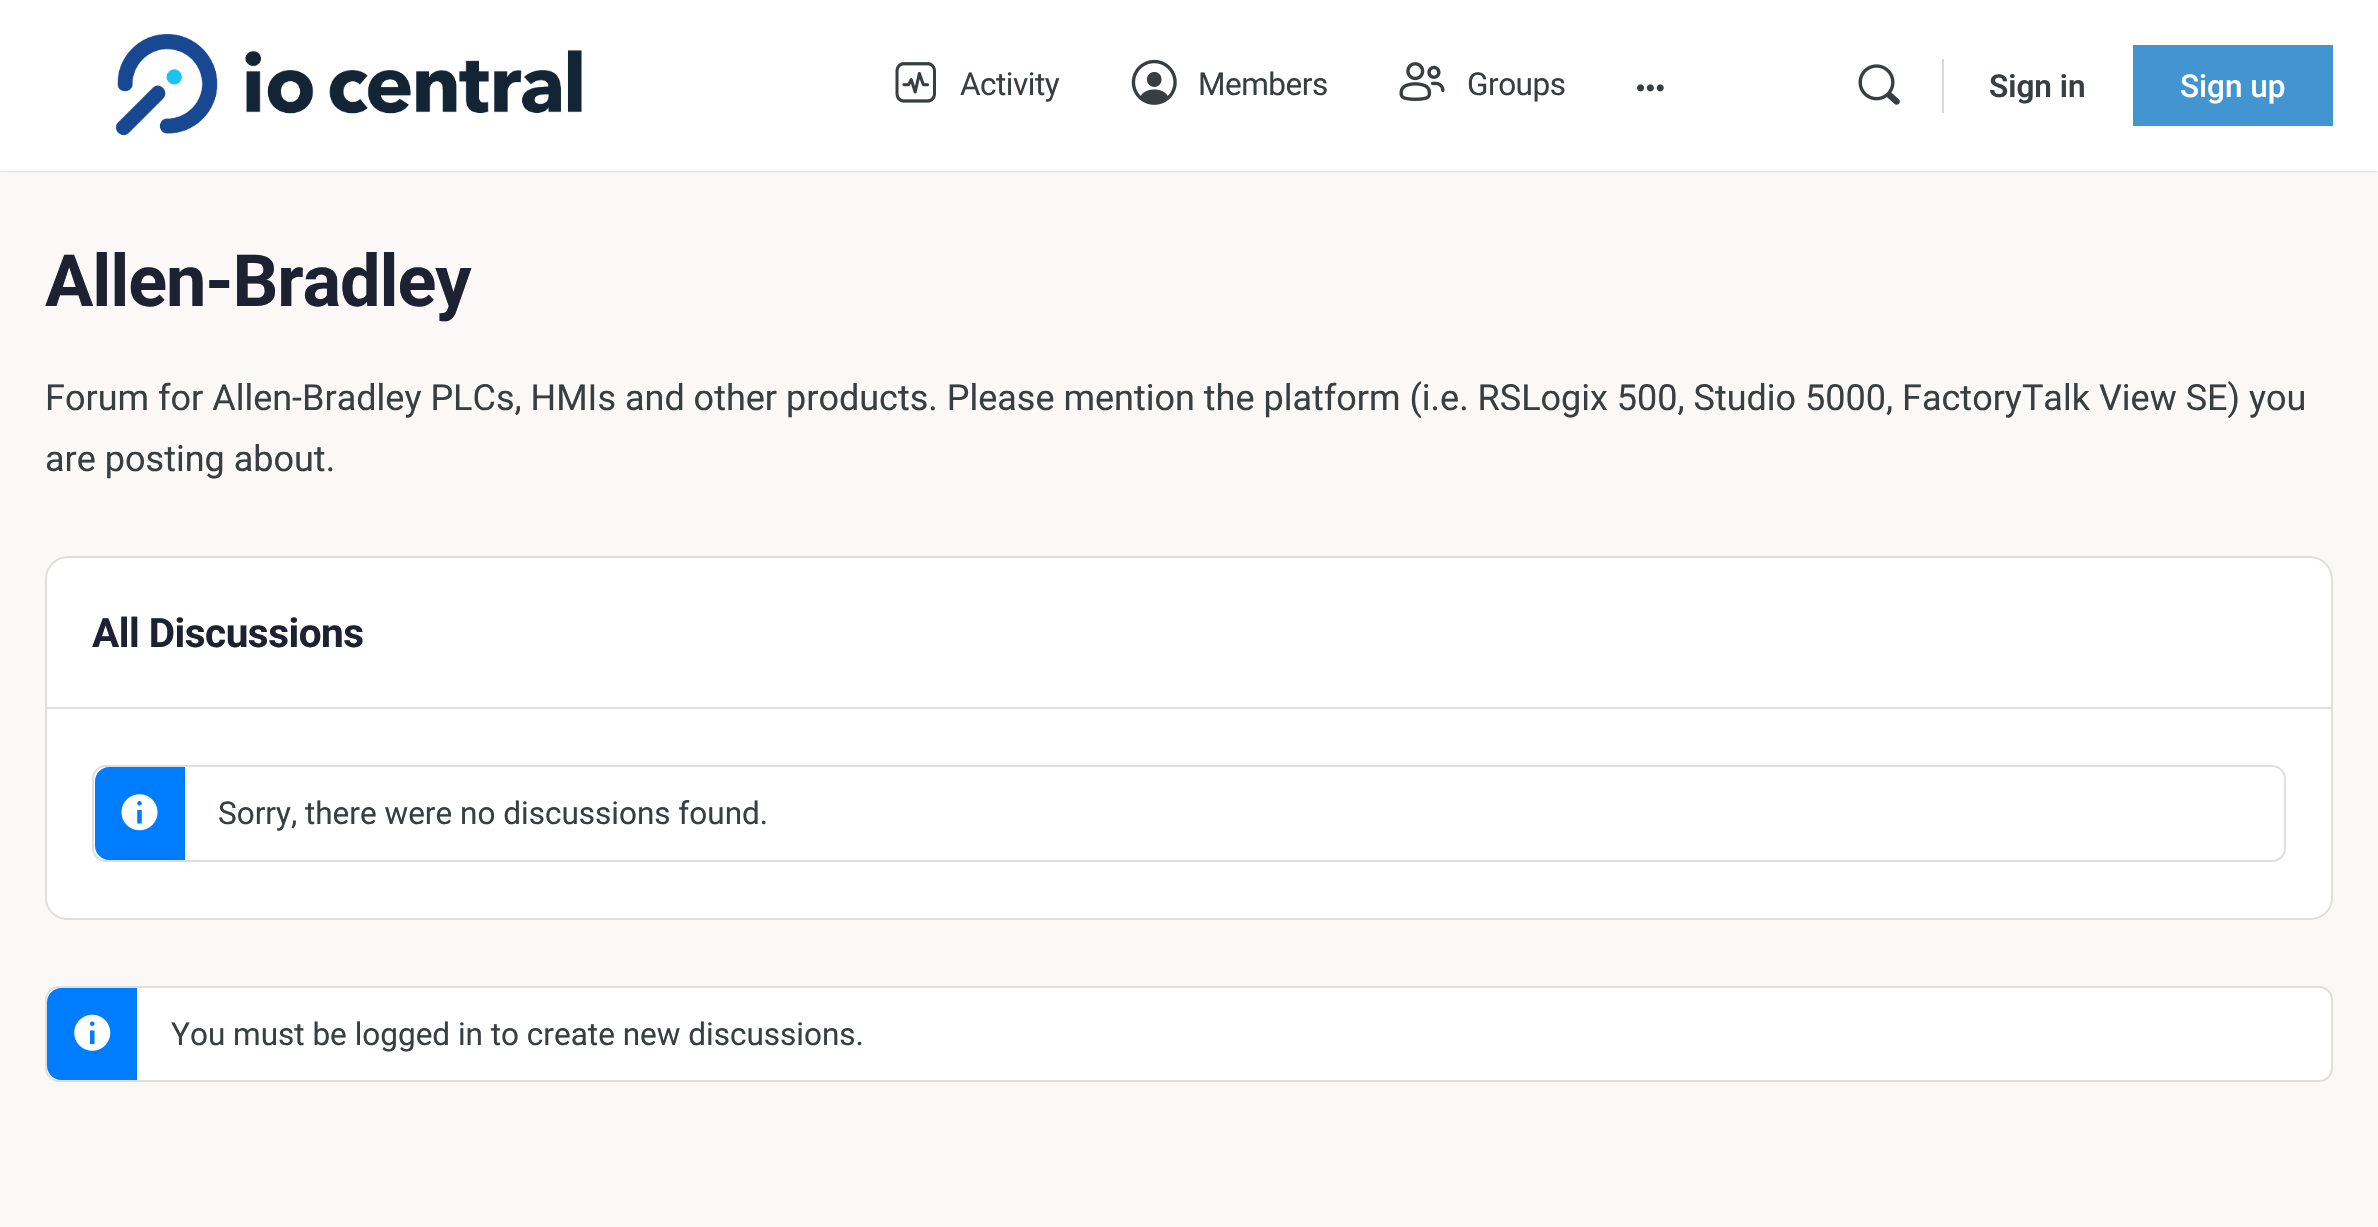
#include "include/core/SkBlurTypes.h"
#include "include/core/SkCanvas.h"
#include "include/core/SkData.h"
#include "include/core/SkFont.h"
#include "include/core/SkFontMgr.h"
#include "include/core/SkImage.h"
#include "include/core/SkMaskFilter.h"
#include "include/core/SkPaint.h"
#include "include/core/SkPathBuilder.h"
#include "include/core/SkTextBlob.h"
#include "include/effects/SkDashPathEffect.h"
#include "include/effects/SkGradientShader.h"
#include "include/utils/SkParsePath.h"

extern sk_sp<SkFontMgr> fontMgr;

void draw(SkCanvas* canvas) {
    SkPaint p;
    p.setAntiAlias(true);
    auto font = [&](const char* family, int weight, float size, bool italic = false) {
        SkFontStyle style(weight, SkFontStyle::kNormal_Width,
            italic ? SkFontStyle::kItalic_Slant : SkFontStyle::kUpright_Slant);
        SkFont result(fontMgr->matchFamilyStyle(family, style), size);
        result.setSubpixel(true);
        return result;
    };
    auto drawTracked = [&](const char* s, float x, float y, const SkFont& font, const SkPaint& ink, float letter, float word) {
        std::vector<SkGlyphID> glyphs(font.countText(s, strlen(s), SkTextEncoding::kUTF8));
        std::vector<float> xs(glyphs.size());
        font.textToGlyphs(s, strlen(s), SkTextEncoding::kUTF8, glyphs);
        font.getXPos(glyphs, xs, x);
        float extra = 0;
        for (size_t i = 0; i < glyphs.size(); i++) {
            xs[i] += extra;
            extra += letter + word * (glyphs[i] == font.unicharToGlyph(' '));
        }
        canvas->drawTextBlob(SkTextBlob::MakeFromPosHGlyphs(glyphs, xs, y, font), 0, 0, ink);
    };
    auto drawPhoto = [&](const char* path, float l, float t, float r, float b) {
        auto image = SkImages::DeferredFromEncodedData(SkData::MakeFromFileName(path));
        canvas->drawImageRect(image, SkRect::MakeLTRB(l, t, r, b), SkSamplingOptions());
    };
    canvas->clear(0xFFFAF9F7);
    p.setColor(0x2641476C);
    p.setMaskFilter(SkMaskFilter::MakeBlur(kNormal_SkBlurStyle, 1));
    canvas->drawRect(SkRect::MakeLTRB(0, 0, 2378, 171), p);
    p.setMaskFilter(nullptr);
    p.setColor(0x0D8B8D9D);
    canvas->drawRect(SkRect::MakeLTRB(0, 171, 2378, 173), p);
    p.setColor(0xFFFFFFFF);
    canvas->drawRect(SkRect::MakeLTRB(0, 0, 2378, 171), p);
    drawPhoto("media/1.png", 115, 34, 582, 136);
    drawPhoto("media/2.png", 895, 62, 936, 103);
    auto font1 = font("Roboto", 400, 31.5f);
    p.setColor(0xFF393E41);
    drawTracked("Activity", 960, 95, font1, p, -0.5f, 0);
    drawPhoto("media/3.png", 1131, 59, 1177, 105);
    drawTracked("Members", 1198, 95, font1, p, -0.5f, 0);
    drawPhoto("media/4.png", 1399, 62, 1445, 101);
    drawTracked("Groups", 1467, 95, font1, p, -0.5f, 0);
    drawPhoto("media/5.png", 1637, 84, 1664, 92);
    drawPhoto("media/6.png", 1858, 64, 1900, 105);
    p.setColor(0xFFD7D8D9);
    canvas->drawRect(SkRect::MakeLTRB(1942, 59, 1944, 113), p);
    auto font2 = font("Roboto", 600, 31.5f);
    p.setColor(0xFF393E41);
    canvas->drawString("Sign in", 1989, 97, font2, p);
    p.setColor(0xFF4395D1);
    canvas->drawRect(SkRect::MakeLTRB(2133, 45, 2333, 126), p);
    auto font3 = font("Roboto", 500, 31.5f);
    p.setColor(0xFFFFFFFF);
    canvas->drawString("Sign up", 2180, 97, font3, p);
    auto font4 = font("Roboto", 700, 72);
    p.setColor(0xFF1E2132);
    drawTracked("Allen-Bradley", 45, 306, font4, p, -1.1f, 0);
    auto font5 = font("Roboto", 400, 36);
    p.setColor(0xFF393E41);
    canvas->drawString("Forum for Allen-Bradley PLCs, HMIs and other products. Please mention the platform (i.e. RSLogix 500, Studio 5000, FactoryTalk View SE) you", 45, 410, font5, p);
    canvas->drawString("are posting about.", 45, 471, font5, p);
    p.setColor(0xFFFFFFFF);
    canvas->drawPath(SkPathBuilder().moveTo(68, 557).lineTo(2310, 557).cubicTo(2322, 557, 2332, 567, 2332, 579).lineTo(2332, 708).lineTo(46, 708).lineTo(46, 579).cubicTo(46, 567, 56, 557, 68, 557).close().detach(), p);
    p.setStyle(SkPaint::kStroke_Style);
    p.setStrokeWidth(2);
    p.setColor(0xFFE0DFDB);
    canvas->drawPath(SkPathBuilder().moveTo(68, 557).lineTo(2310, 557).cubicTo(2322, 557, 2332, 567, 2332, 579).lineTo(2332, 708).lineTo(46, 708).lineTo(46, 579).cubicTo(46, 567, 56, 557, 68, 557).close().detach(), p);
    auto font6 = font("Roboto", 700, 40.5f);
    p.setStyle(SkPaint::kFill_Style);
    p.setColor(0xFF1E2132);
    drawTracked("All Discussions", 92, 647, font6, p, -0.5f, 0);
    p.setColor(0xFFFFFFFF);
    canvas->drawPath(SkPathBuilder().moveTo(45, 709).lineTo(2333, 709).lineTo(2333, 897).cubicTo(2333, 909.5f, 2322.5f, 920, 2310, 920).lineTo(68, 920).cubicTo(55.5f, 920, 45, 909.5f, 45, 897).close().detach(), p);
    p.setColor(0xFFE0DFDB);
    canvas->drawPath(SkPathBuilder(SkPathFillType::kEvenOdd).moveTo(45, 709).lineTo(2333, 709).lineTo(2333, 898).cubicTo(2333, 910, 2323, 920, 2311, 920).lineTo(68, 920).cubicTo(55, 920, 45, 910, 45, 898).close().moveTo(47, 709).lineTo(2331, 709).lineTo(2331, 898).cubicTo(2331, 909, 2322, 918, 2311, 918).lineTo(68, 918).cubicTo(56, 918, 47, 909, 47, 898).close().detach(), p);
    p.setStyle(SkPaint::kStroke_Style);
    canvas->drawRoundRect(SkRect::MakeLTRB(93, 766, 2285, 861), 13, 13, p);
    p.setStyle(SkPaint::kFill_Style);
    p.setColor(0xFF007CFF);
    canvas->drawPath(SkPathBuilder().moveTo(109, 767).lineTo(185, 767).lineTo(185, 860).lineTo(109, 860).cubicTo(101.5f, 860, 95, 853.5f, 95, 846).lineTo(95, 781).cubicTo(95, 773.5f, 101.5f, 767, 109, 767).close().detach(), p);
    drawPhoto("media/7.png", 121, 794, 158, 831);
    p.setColor(0xFF393E41);
    canvas->drawString("Sorry, there were no discussions found.", 218, 824, font1, p);
    p.setColor(0xFFFFFFFF);
    canvas->drawRoundRect(SkRect::MakeLTRB(46, 987, 2332, 1081), 13, 13, p);
    p.setStyle(SkPaint::kStroke_Style);
    p.setColor(0xFFE0DFDB);
    canvas->drawRoundRect(SkRect::MakeLTRB(46, 987, 2332, 1081), 13, 13, p);
    p.setStyle(SkPaint::kFill_Style);
    p.setColor(0xFF007CFF);
    canvas->drawPath(SkPathBuilder().moveTo(61, 988).lineTo(137, 988).lineTo(137, 1080).lineTo(61, 1080).cubicTo(53.5f, 1080, 47, 1073.5f, 47, 1066).lineTo(47, 1002).cubicTo(47, 994.5f, 53.5f, 988, 61, 988).close().detach(), p);
    drawPhoto("media/8.png", 74, 1014, 111, 1051);
    p.setColor(0xFF393E41);
    canvas->drawString("You must be logged in to create new discussions.", 171, 1045, font1, p);
}
